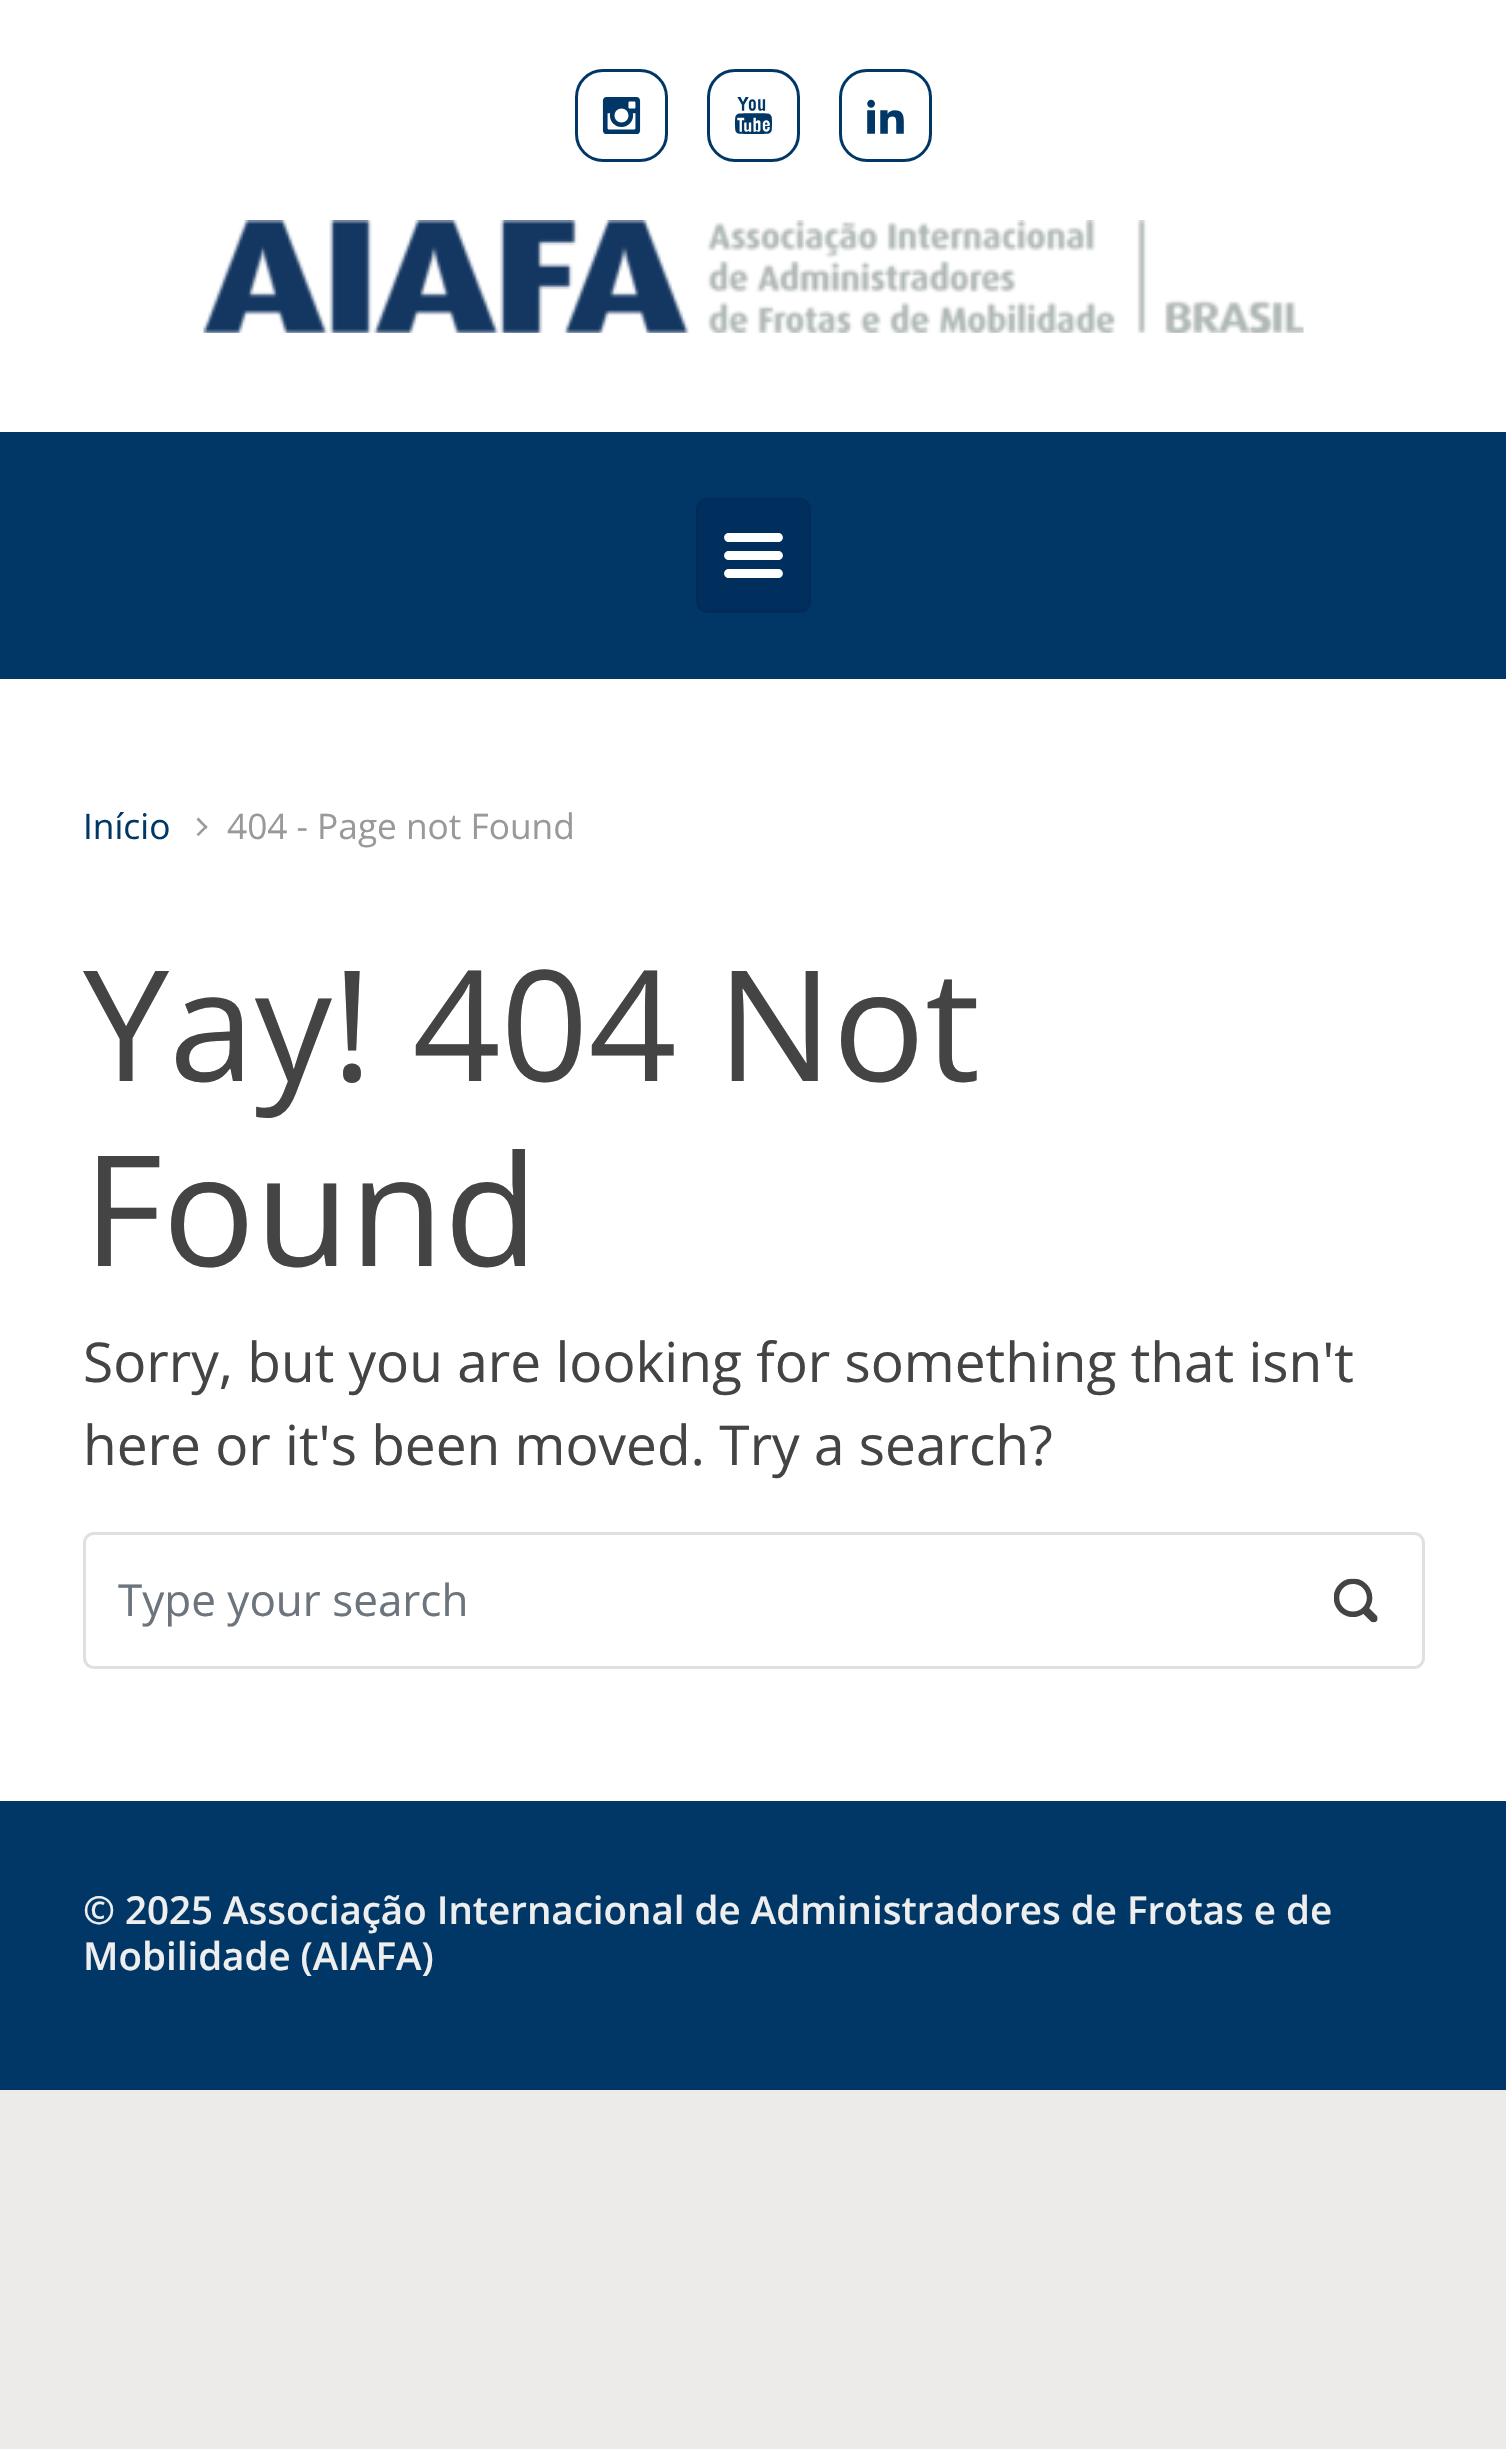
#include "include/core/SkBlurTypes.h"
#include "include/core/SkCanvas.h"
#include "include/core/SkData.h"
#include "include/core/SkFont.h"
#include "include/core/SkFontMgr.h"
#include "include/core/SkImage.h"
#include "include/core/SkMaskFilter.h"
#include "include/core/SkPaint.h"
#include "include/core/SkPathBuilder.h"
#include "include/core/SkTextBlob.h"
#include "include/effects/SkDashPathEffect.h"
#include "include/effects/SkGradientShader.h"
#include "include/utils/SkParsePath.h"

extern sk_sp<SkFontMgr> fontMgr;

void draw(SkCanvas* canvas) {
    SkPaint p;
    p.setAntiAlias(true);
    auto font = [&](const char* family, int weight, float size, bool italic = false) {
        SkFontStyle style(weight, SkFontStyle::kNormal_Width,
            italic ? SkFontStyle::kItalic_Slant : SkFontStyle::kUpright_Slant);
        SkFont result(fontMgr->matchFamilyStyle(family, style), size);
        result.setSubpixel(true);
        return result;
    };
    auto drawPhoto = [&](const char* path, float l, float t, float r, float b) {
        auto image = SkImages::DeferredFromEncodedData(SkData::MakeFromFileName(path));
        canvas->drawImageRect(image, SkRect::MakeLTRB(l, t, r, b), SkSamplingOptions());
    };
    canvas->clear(0xFFECEBE9);
    p.setColor(0xFFFFFFFF);
    canvas->drawRect(SkRect::MakeLTRB(0, 0, 1506, 432), p);
    p.setStyle(SkPaint::kStroke_Style);
    p.setStrokeWidth(3);
    p.setColor(0xFF013766);
    canvas->drawRoundRect(SkRect::MakeLTRB(576.5f, 70.5f, 666.5f, 160.5f), 26.5f, 26.5f, p);
    drawPhoto("media/1.png", 602, 97, 641, 134);
    canvas->drawRoundRect(SkRect::MakeLTRB(708.5f, 70.5f, 798.5f, 160.5f), 26.5f, 26.5f, p);
    drawPhoto("media/2.png", 734, 97, 773, 134);
    canvas->drawRoundRect(SkRect::MakeLTRB(840.5f, 70.5f, 930.5f, 160.5f), 26.5f, 26.5f, p);
    drawPhoto("media/3.png", 867, 99, 904, 134);
    drawPhoto("media/4.png", 203, 220, 1304, 333);
    p.setStyle(SkPaint::kFill_Style);
    canvas->drawRect(SkRect::MakeLTRB(0, 432, 1506, 679), p);
    p.setColor(0xFF002F5E);
    canvas->drawRoundRect(SkRect::MakeLTRB(697.5f, 499.5f, 809.5f, 611.5f), 9.5f, 9.5f, p);
    p.setStyle(SkPaint::kStroke_Style);
    p.setColor(0xFF002B5A);
    canvas->drawRoundRect(SkRect::MakeLTRB(697.5f, 499.5f, 809.5f, 611.5f), 9.5f, 9.5f, p);
    drawPhoto("media/5.png", 724, 533, 783, 578);
    p.setStyle(SkPaint::kFill_Style);
    p.setColor(0xFFFFFFFF);
    canvas->drawRect(SkRect::MakeLTRB(0, 679, 1506, 1801), p);
    auto font1 = font("Open Sans", 400, 35.25f);
    p.setColor(0xFF013766);
    canvas->drawString("Início", 83, 839, font1, p);
    p.setColor(0xFF999999);
    canvas->drawPath(SkPathBuilder().moveTo(196.5f, 819.5f).lineTo(198.5f, 817.5f).lineTo(207.5f, 827).lineTo(206, 829).close().detach(), p);
    canvas->drawPath(SkPathBuilder().moveTo(196.5f, 834.5f).lineTo(206, 825).lineTo(207.5f, 827).lineTo(198.5f, 836).close().detach(), p);
    canvas->drawString("404 - Page not Found", 227, 839, font1, p);
    auto font2 = font("Open Sans", 400, 154);
    p.setColor(0xFF444444);
    canvas->drawString("Yay! 404 Not", 83, 1081, font2, p);
    canvas->drawString("Found", 83, 1266, font2, p);
    auto font3 = font("Open Sans", 400, 55);
    canvas->drawString("Sorry, but you are looking for something that isn't", 83, 1382, font3, p);
    canvas->drawString("here or it's been moved. Try a search?", 83, 1465, font3, p);
    p.setStyle(SkPaint::kStroke_Style);
    p.setColor(0xFFE0E0E0);
    canvas->drawRoundRect(SkRect::MakeLTRB(84.5f, 1533.5f, 1423.5f, 1667.5f), 9.5f, 9.5f, p);
    auto font4 = font("Open Sans", 400, 44);
    p.setStyle(SkPaint::kFill_Style);
    p.setColor(0xFF6C757D);
    canvas->drawString("Type your search", 118, 1616, font4, p);
    drawPhoto("media/6.png", 1334, 1578, 1378, 1623);
    p.setColor(0xFF013766);
    canvas->drawRect(SkRect::MakeLTRB(0, 1801, 1506, 2090), p);
    auto font5 = font("Open Sans", 600, 38.5f);
    p.setColor(0xFFEEEEEE);
    canvas->drawString("© 2025 Associação Internacional de Administradores de Frotas e de", 83, 1924, font5, p);
    canvas->drawString("Mobilidade (AIAFA)", 83, 1970, font5, p);
}
